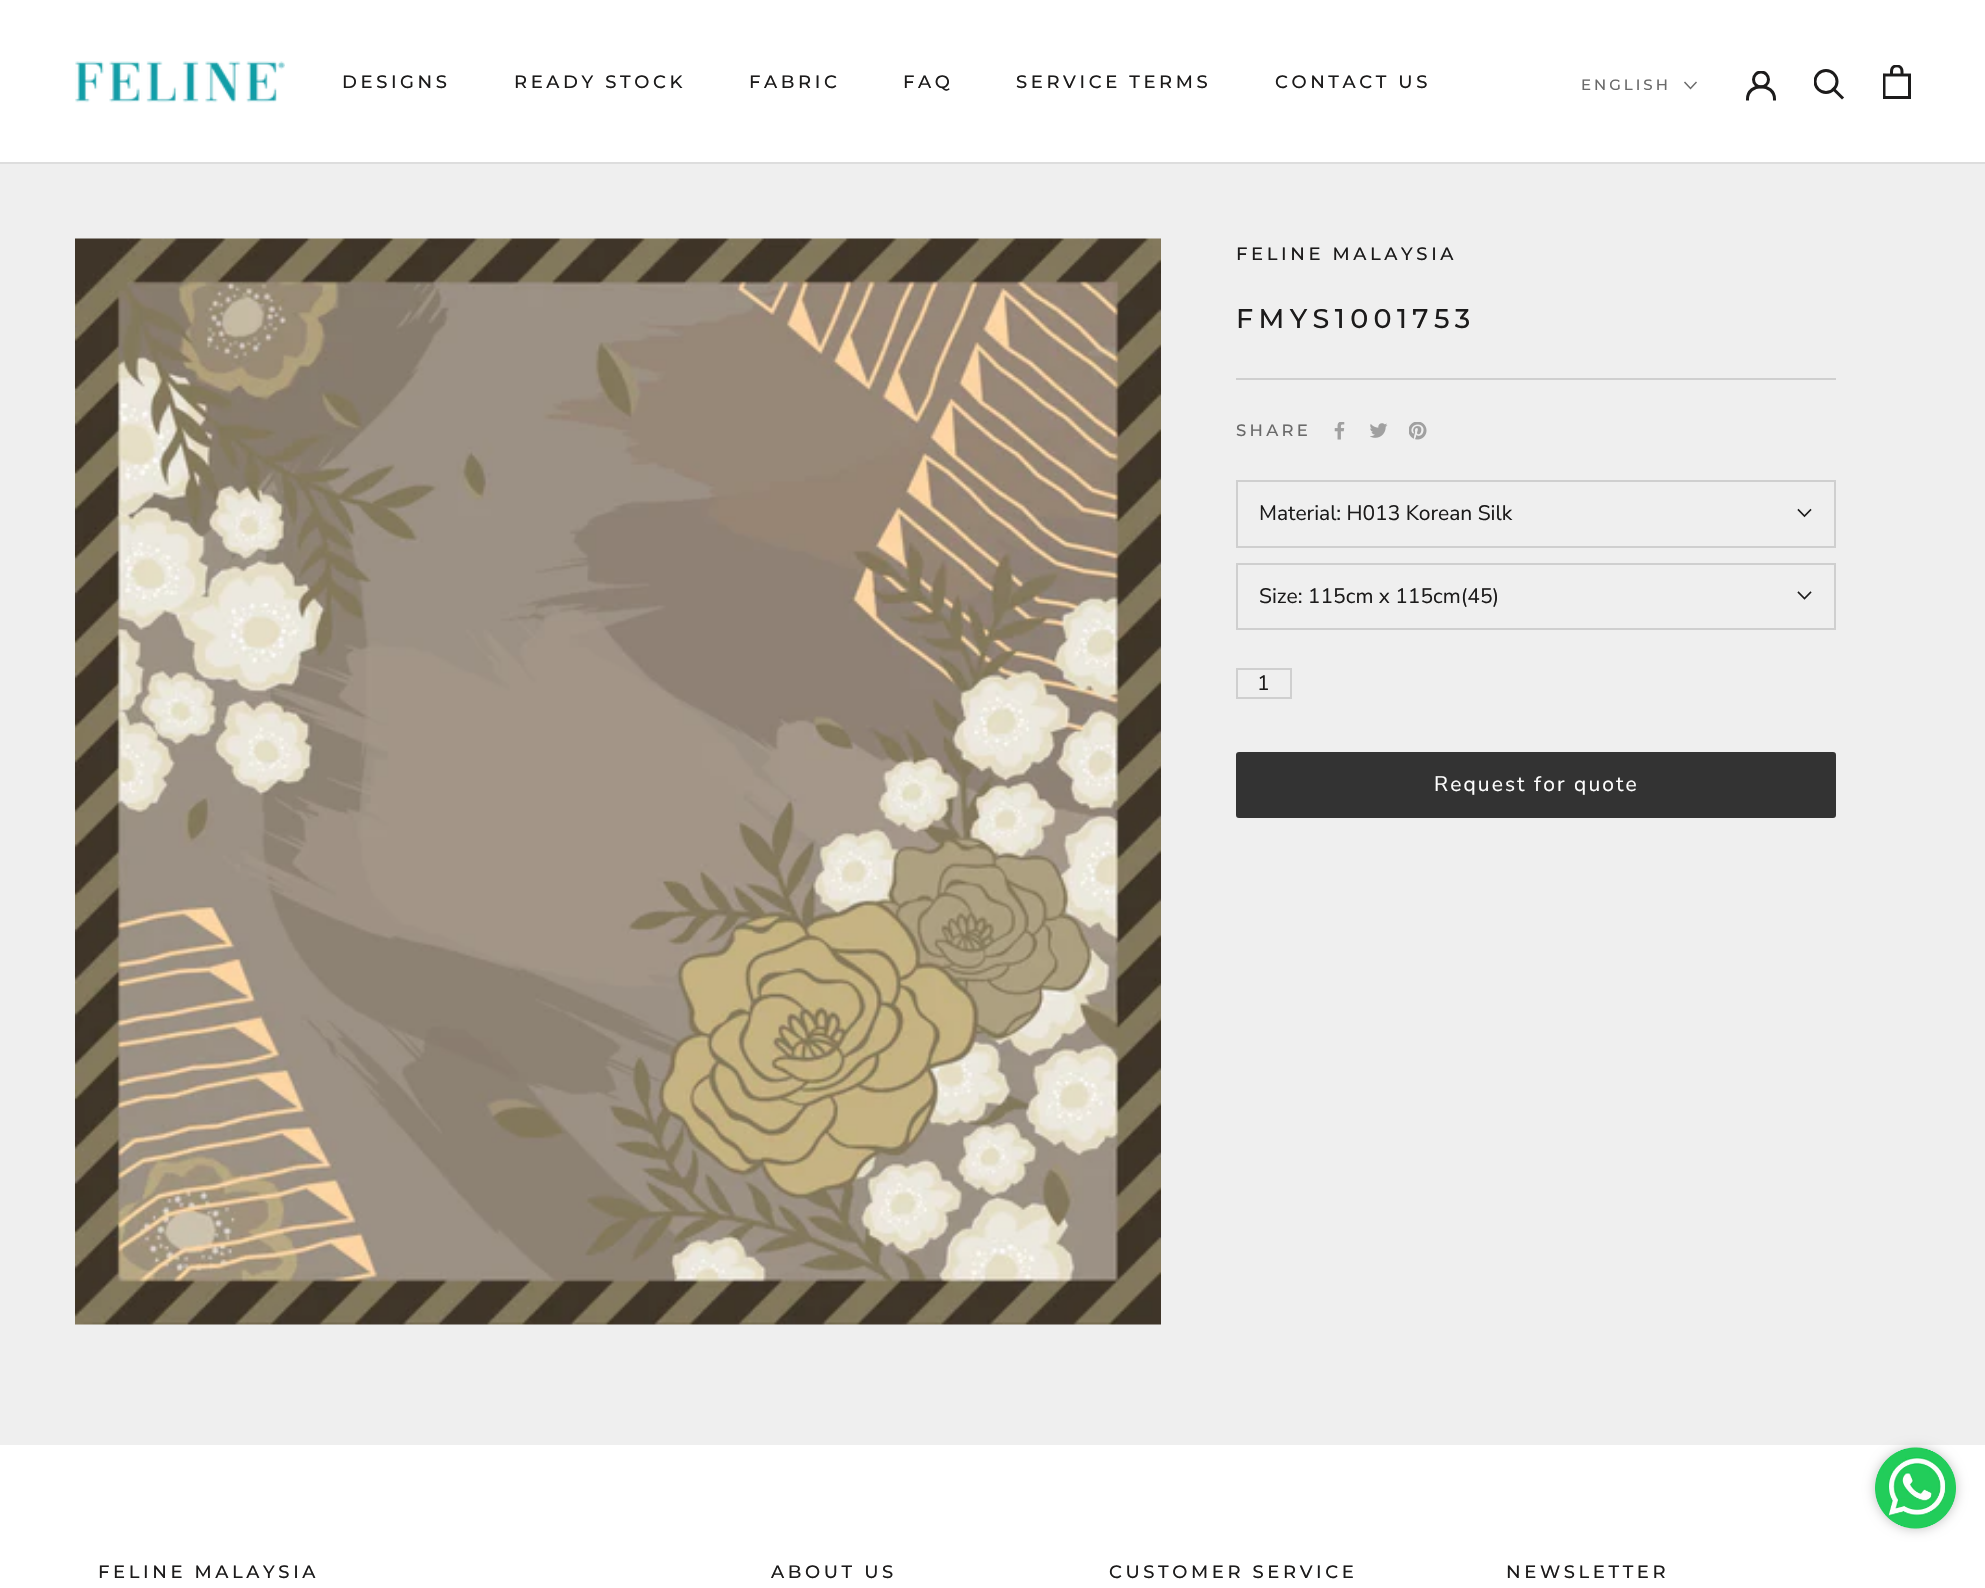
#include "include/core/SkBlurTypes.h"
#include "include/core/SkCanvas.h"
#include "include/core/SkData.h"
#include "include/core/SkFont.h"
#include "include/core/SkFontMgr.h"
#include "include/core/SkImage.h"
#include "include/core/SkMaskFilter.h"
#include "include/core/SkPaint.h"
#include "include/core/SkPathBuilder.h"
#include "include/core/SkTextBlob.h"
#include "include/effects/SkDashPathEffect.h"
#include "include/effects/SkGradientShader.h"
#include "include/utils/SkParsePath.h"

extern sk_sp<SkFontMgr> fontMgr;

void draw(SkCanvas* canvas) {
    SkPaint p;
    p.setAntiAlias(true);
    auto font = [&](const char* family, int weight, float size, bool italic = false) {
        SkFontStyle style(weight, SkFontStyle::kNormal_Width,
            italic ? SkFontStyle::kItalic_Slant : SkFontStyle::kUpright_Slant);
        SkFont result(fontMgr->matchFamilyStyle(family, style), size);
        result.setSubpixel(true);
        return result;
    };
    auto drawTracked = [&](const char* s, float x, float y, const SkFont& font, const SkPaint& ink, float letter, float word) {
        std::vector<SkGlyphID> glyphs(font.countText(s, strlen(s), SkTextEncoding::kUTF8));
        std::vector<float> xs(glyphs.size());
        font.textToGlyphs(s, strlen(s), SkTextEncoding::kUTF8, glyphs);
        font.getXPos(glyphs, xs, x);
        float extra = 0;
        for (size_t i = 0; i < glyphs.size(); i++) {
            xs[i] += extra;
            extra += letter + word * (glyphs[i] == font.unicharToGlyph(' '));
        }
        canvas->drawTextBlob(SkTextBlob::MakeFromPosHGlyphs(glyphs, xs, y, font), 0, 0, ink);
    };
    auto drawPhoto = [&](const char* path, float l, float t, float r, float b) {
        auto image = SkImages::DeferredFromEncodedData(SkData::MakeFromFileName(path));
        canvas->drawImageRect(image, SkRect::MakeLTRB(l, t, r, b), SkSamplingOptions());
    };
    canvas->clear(0xFFEFEFEF);
    p.setColor(0xFFFFFFFF);
    canvas->drawRect(SkRect::MakeLTRB(0, 0, 1985, 162), p);
    p.setColor(0xFFDDDDDD);
    canvas->drawRect(SkRect::MakeLTRB(0, 162, 1985, 164), p);
    drawPhoto("media/1.png", 75, 61, 285, 103);
    auto font1 = font("Montserrat", 500, 18);
    p.setColor(0xFF1C1B1B);
    {
        const struct { const char* s; float x, y; } items[] = {
            {"DESIGNS", 342, 88},
            {"READY STOCK", 514, 88},
            {"FABRIC", 749, 88},
            {"FAQ", 903, 88},
            {"SERVICE TERMS", 1016, 88},
            {"CONTACT US", 1275, 88},
        };
        for (auto [s, x, y] : items) {
            drawTracked(s, x, y, font1, p, 3.6f, 0);
        }
    }
    auto font2 = font("Montserrat", 500, 15);
    p.setColor(0xFF6A6A6A);
    drawTracked("ENGLISH", 1581, 90, font2, p, 3, 0);
    p.setStyle(SkPaint::kStroke_Style);
    p.setStrokeWidth(1.5f);
    p.setStrokeCap(SkPaint::kSquare_Cap);
    canvas->drawPath(SkPathBuilder().moveTo(1696, 82.5f).lineTo(1690.5f, 88.5f).lineTo(1685, 82.5f).detach(), p);
    p.setStrokeWidth(3);
    p.setColor(0xFF1C1B1B);
    canvas->drawPath(SkPathBuilder().moveTo(1747.5f, 99).cubicTo(1747.5f, 82.5f, 1774.5f, 82.5f, 1774.5f, 99).detach(), p);
    canvas->save();
    canvas->clipRect(SkRect::MakeLTRB(1746, 71, 1776, 101));
    p.setStrokeCap(SkPaint::kButt_Cap);
    canvas->drawCircle(1761, 79.5f, 7.5f, p);
    canvas->restore();
    p.setStrokeCap(SkPaint::kSquare_Cap);
    canvas->drawPath(SkPathBuilder().moveTo(1842, 97.5f).lineTo(1833.5f, 89).detach(), p);
    canvas->save();
    canvas->clipRect(SkRect::MakeLTRB(1814, 69, 1845, 101));
    p.setStrokeCap(SkPaint::kButt_Cap);
    canvas->drawCircle(1826, 81.5f, 11, p);
    canvas->restore();
    drawPhoto("media/2.png", 1883, 65, 1911, 99);
    drawPhoto("media/3.png", 75, 238, 1161, 1325);
    p.setStyle(SkPaint::kFill_Style);
    p.setColor(0xFFCFCFCF);
    canvas->drawRect(SkRect::MakeLTRB(1236, 378, 1836, 380), p);
    p.setColor(0xFF1C1B1B);
    drawTracked("FELINE MALAYSIA", 1236, 260, font1, p, 3.6f, 0);
    auto font3 = font("Montserrat", 500, 27);
    drawTracked("FMYS1001753", 1236, 328, font3, p, 5.4f, 0);
    auto font4 = font("Montserrat", 500, 16.5f);
    p.setColor(0xFF6A6A6A);
    drawTracked("SHARE", 1236, 436, font4, p, 3.25f, 0);
    drawPhoto("media/4.png", 1334, 422, 1345, 440);
    drawPhoto("media/5.png", 1370, 423, 1388, 438);
    drawPhoto("media/6.png", 1409, 422, 1427, 440);
    p.setStyle(SkPaint::kStroke_Style);
    p.setStrokeWidth(2);
    p.setColor(0xFFCFCFCF);
    canvas->drawRect(SkRect::MakeLTRB(1237, 481, 1835, 547), p);
    auto font5 = font("Nunito Sans", 400, 21);
    p.setStyle(SkPaint::kFill_Style);
    p.setColor(0xFF1C1B1B);
    canvas->drawString("Material: H013 Korean Silk", 1259, 520, font5, p);
    p.setStyle(SkPaint::kStroke_Style);
    p.setStrokeWidth(1.6f);
    p.setStrokeCap(SkPaint::kSquare_Cap);
    canvas->drawPath(SkPathBuilder().moveTo(1810.5f, 510).lineTo(1804.5f, 516).lineTo(1798.5f, 510).detach(), p);
    p.setStrokeWidth(2);
    p.setStrokeCap(SkPaint::kButt_Cap);
    p.setColor(0xFFCFCFCF);
    canvas->drawRect(SkRect::MakeLTRB(1237, 564, 1835, 629), p);
    p.setStyle(SkPaint::kFill_Style);
    p.setColor(0xFF1C1B1B);
    canvas->drawString("Size: 115cm x 115cm(45)", 1259, 603, font5, p);
    p.setStyle(SkPaint::kStroke_Style);
    p.setStrokeWidth(1.6f);
    p.setStrokeCap(SkPaint::kSquare_Cap);
    canvas->drawPath(SkPathBuilder().moveTo(1810.5f, 592.5f).lineTo(1804.5f, 598.5f).lineTo(1798.5f, 592.5f).detach(), p);
    p.setStrokeWidth(2);
    p.setStrokeCap(SkPaint::kButt_Cap);
    p.setColor(0xFFCFCFCF);
    canvas->drawRect(SkRect::MakeLTRB(1237, 669, 1291, 698), p);
    p.setStyle(SkPaint::kFill_Style);
    p.setColor(0xFF1C1B1B);
    canvas->drawString("1", 1257, 690, font5, p);
    p.setColor(0xFF333333);
    canvas->drawRoundRect(SkRect::MakeLTRB(1237.5f, 753.5f, 1834.5f, 816.5f), 1.5f, 1.5f, p);
    p.setStyle(SkPaint::kStroke_Style);
    p.setStrokeWidth(3);
    canvas->drawRoundRect(SkRect::MakeLTRB(1237.5f, 753.5f, 1834.5f, 816.5f), 1.5f, 1.5f, p);
    p.setStyle(SkPaint::kFill_Style);
    p.setColor(0xFFFFFFFF);
    drawTracked("Request for quote", 1434, 791, font5, p, 2.1f, 0);
    canvas->drawRect(SkRect::MakeLTRB(0, 1445, 1985, 1588), p);
    p.setColor(0xFF1C1B1B);
    {
        const struct { const char* s; float x, y; } items[] = {
            {"FELINE MALAYSIA", 98, 1578},
            {"ABOUT US", 771, 1578},
            {"CUSTOMER SERVICE", 1109, 1578},
            {"NEWSLETTER", 1506, 1578},
        };
        for (auto [s, x, y] : items) {
            drawTracked(s, x, y, font1, p, 3.6f, 0);
        }
    }
    p.setColor(0xFFC2C2C2);
    p.setMaskFilter(SkMaskFilter::MakeBlur(kNormal_SkBlurStyle, 6));
    canvas->drawRoundRect(SkRect::MakeLTRB(1875, 1448, 1956, 1529), 40.5f, 40.5f, p);
    p.setMaskFilter(nullptr);
    drawPhoto("media/7.png", 1875, 1447, 1956, 1529);
}
